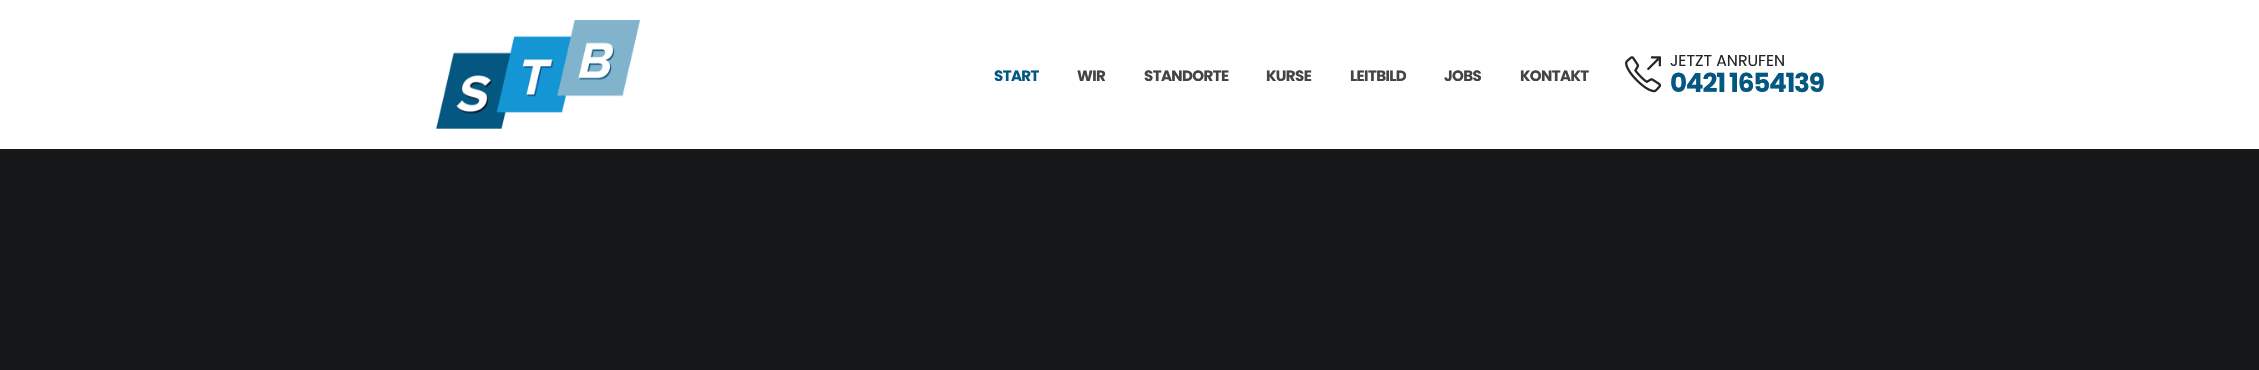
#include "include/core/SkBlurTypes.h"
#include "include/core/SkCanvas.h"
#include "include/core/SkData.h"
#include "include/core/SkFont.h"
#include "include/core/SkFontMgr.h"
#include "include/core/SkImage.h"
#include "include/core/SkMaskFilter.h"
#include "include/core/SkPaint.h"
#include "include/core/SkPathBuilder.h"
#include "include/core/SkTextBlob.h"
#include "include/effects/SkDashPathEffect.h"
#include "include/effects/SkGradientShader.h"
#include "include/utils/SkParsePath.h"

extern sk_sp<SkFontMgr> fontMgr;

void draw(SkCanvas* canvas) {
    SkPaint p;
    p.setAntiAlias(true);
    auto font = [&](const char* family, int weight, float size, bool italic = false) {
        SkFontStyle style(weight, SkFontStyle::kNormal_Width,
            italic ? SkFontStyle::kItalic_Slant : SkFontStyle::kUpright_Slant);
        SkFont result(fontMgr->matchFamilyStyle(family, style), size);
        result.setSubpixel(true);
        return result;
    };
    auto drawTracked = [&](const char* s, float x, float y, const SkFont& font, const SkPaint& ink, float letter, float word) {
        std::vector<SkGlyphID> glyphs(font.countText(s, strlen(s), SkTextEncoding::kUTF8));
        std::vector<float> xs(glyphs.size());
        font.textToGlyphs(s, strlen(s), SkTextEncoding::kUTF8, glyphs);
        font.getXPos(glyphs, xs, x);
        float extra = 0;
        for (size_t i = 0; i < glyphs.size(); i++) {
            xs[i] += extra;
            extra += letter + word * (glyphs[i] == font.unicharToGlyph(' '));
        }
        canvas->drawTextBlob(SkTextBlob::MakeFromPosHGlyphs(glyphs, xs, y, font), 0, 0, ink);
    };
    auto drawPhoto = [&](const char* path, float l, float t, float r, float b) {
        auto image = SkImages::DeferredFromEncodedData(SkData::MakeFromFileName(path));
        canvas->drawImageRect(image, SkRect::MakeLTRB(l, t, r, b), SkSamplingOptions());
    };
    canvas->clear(0xFFFFFFFF);
    drawPhoto("media/1.png", 436, 20, 640, 129);
    auto font1 = font("Poppins", 700, 15);
    p.setColor(0xFF045781);
    drawTracked("START", 994, 81, font1, p, -0.6f, 0);
    p.setColor(0xFF444444);
    {
        const struct { const char* s; float x, y; } items[] = {
            {"WIR", 1077, 81},
            {"STANDORTE", 1144, 81},
            {"KURSE", 1266, 81},
            {"LEITBILD", 1350, 81},
            {"JOBS", 1444, 81},
            {"KONTAKT", 1520, 81},
        };
        for (auto [s, x, y] : items) {
            drawTracked(s, x, y, font1, p, -0.6f, 0);
        }
    }
    drawPhoto("media/2.png", 1625, 56, 1662, 93);
    auto font2 = font("Poppins", 400, 15.75f);
    p.setColor(0xFF212529);
    canvas->drawString("JETZT ANRUFEN", 1670, 66, font2, p);
    auto font3 = font("Poppins", 700, 26.25f);
    p.setColor(0xFF045781);
    drawTracked("0421 1654139", 1670, 92, font3, p, -1.25f, 0);
    p.setColor(0xFF151719);
    canvas->drawRect(SkRect::MakeLTRB(0, 149, 2259, 370), p);
}
